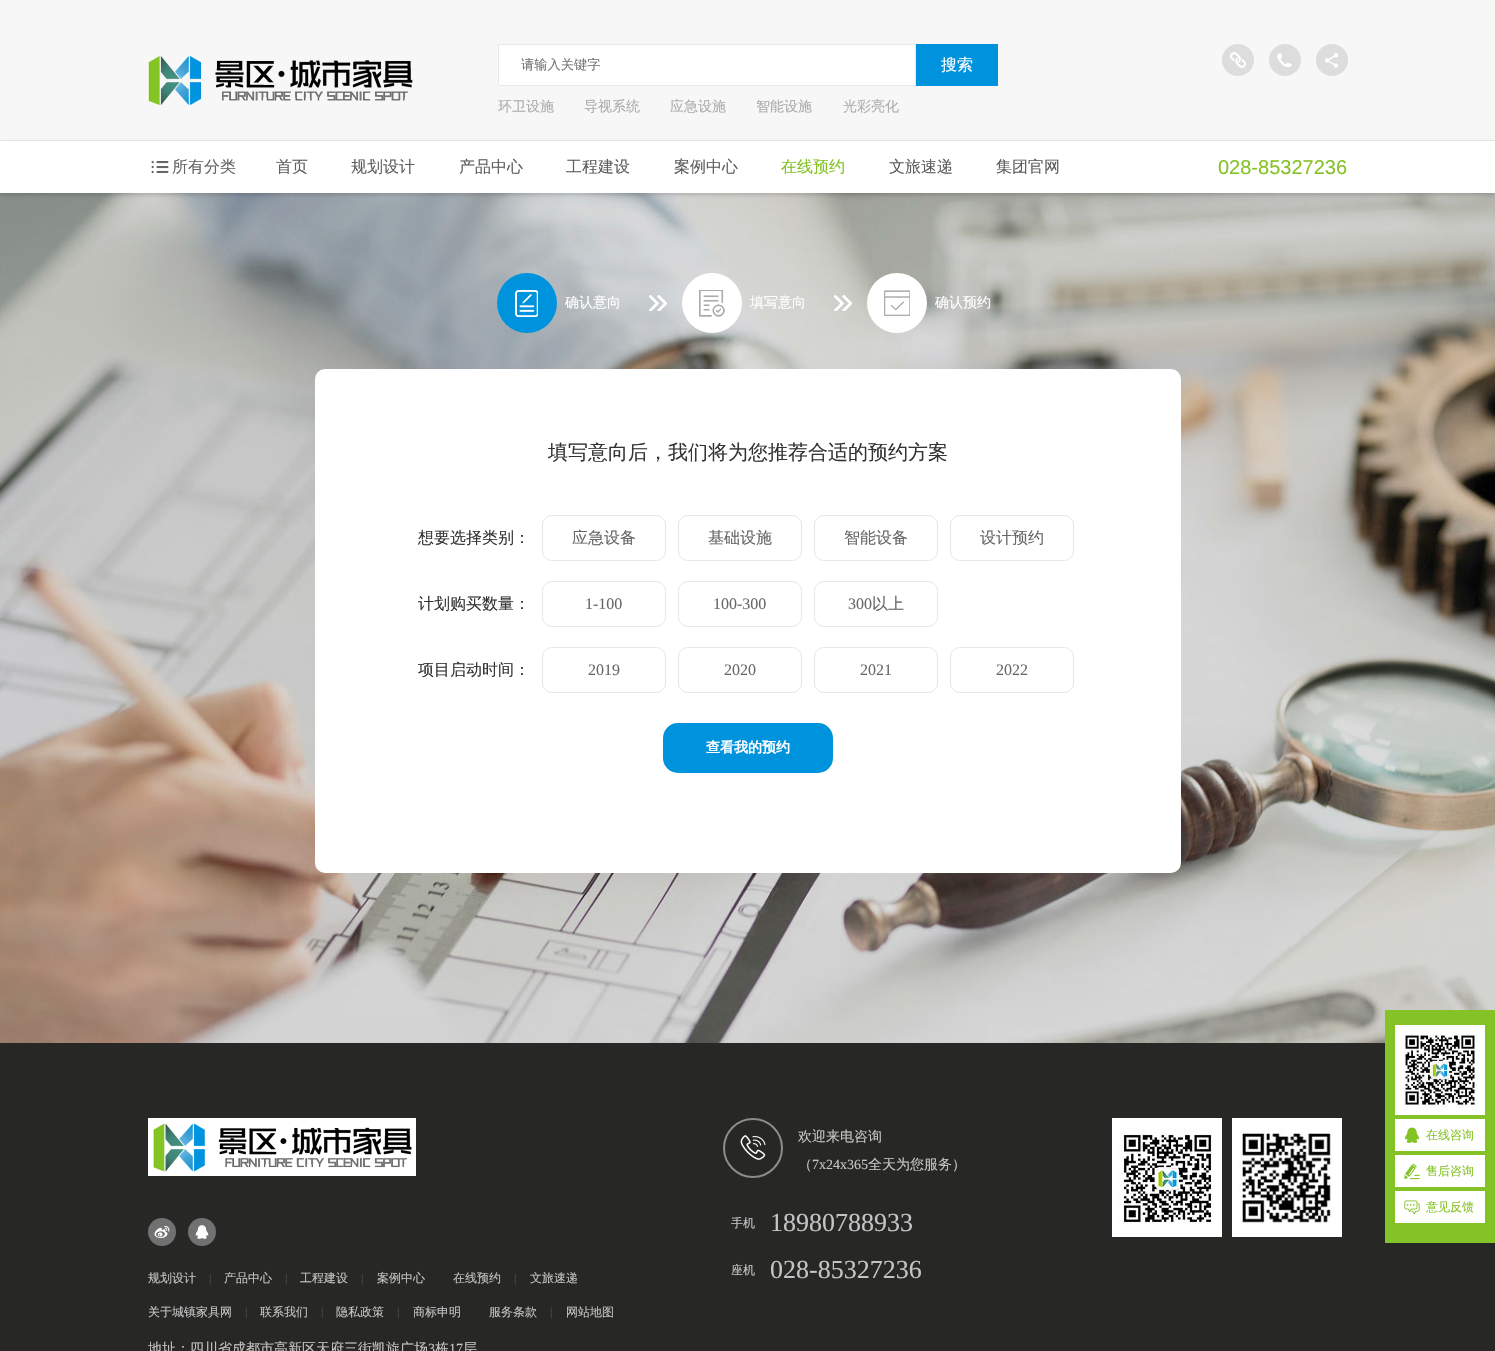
#include "include/core/SkBlurTypes.h"
#include "include/core/SkCanvas.h"
#include "include/core/SkData.h"
#include "include/core/SkFont.h"
#include "include/core/SkFontMgr.h"
#include "include/core/SkImage.h"
#include "include/core/SkMaskFilter.h"
#include "include/core/SkPaint.h"
#include "include/core/SkPathBuilder.h"
#include "include/core/SkTextBlob.h"
#include "include/effects/SkDashPathEffect.h"
#include "include/effects/SkGradientShader.h"
#include "include/utils/SkParsePath.h"

extern sk_sp<SkFontMgr> fontMgr;

void draw(SkCanvas* canvas) {
    SkPaint p;
    p.setAntiAlias(true);
    auto font = [&](const char* family, int weight, float size, bool italic = false) {
        SkFontStyle style(weight, SkFontStyle::kNormal_Width,
            italic ? SkFontStyle::kItalic_Slant : SkFontStyle::kUpright_Slant);
        SkFont result(fontMgr->matchFamilyStyle(family, style), size);
        result.setSubpixel(true);
        return result;
    };
    auto drawPhoto = [&](const char* path, float l, float t, float r, float b) {
        auto image = SkImages::DeferredFromEncodedData(SkData::MakeFromFileName(path));
        canvas->drawImageRect(image, SkRect::MakeLTRB(l, t, r, b), SkSamplingOptions());
    };
    canvas->clear(0xFFF7F7F7);
    p.setColor(0xFFE8E8E8);
    canvas->drawRect(SkRect::MakeLTRB(0, 140, 1495, 141), p);
    drawPhoto("media/1.png", 148, 56, 413, 105);
    p.setColor(0xFFFFFFFF);
    canvas->drawRect(SkRect::MakeLTRB(498.5f, 44.5f, 915.5f, 85.5f), p);
    p.setStyle(SkPaint::kStroke_Style);
    p.setStrokeWidth(1);
    p.setColor(0xFFE9E9E9);
    canvas->drawRect(SkRect::MakeLTRB(498.5f, 44.5f, 915.5f, 85.5f), p);
    auto font1 = font("WenQuanYi Zen Hei", 500, 13.25f);
    p.setStyle(SkPaint::kFill_Style);
    p.setColor(0xFF757575);
    canvas->drawString("请输入关键字", 521, 69, font1, p);
    p.setColor(0xFF0093DD);
    canvas->drawRect(SkRect::MakeLTRB(916, 44, 998, 86), p);
    auto font2 = font("WenQuanYi Zen Hei", 500, 16);
    p.setColor(0xFFFFFFFF);
    canvas->drawString("搜索", 941, 70, font2, p);
    auto font3 = font("WenQuanYi Zen Hei", 500, 14);
    p.setColor(0xFFACACAC);
    {
        const struct { const char* s; float x, y; } items[] = {
            {"环卫设施", 498, 111},
            {"导视系统", 584, 111},
            {"应急设施", 670, 111},
            {"智能设施", 756, 111},
            {"光彩亮化", 843, 111},
        };
        for (auto [s, x, y] : items) {
            canvas->drawString(s, x, y, font3, p);
        }
    }
    p.setColor(0xFFDDDDDD);
    canvas->drawCircle(1238, 60, 16, p);
    drawPhoto("media/2.png", 1230, 52, 1246, 68);
    canvas->drawCircle(1285, 60, 16, p);
    drawPhoto("media/3.png", 1277, 53, 1292, 67);
    canvas->drawCircle(1332, 60, 16, p);
    drawPhoto("media/4.png", 1325, 53, 1338, 68);
    drawPhoto("media/6.png", 0, 193, 1495, 1043);
    p.setColor(0x29000000);
    p.setMaskFilter(SkMaskFilter::MakeBlur(kNormal_SkBlurStyle, 2));
    canvas->drawRect(SkRect::MakeLTRB(0, 143, 1495, 195), p);
    p.setMaskFilter(nullptr);
    p.setColor(0xFFFFFFFF);
    canvas->drawRect(SkRect::MakeLTRB(0, 141, 1495, 193), p);
    drawPhoto("media/5.png", 151, 160, 169, 174);
    p.setColor(0xFF666666);
    canvas->drawString("所有分类", 172, 172, font2, p);
    p.setColor(0xFF5E5E5E);
    {
        const struct { const char* s; float x, y; } items[] = {
            {"首页", 276, 172},
            {"规划设计", 351, 172},
            {"产品中心", 459, 172},
            {"工程建设", 566, 172},
            {"案例中心", 674, 172},
        };
        for (auto [s, x, y] : items) {
            canvas->drawString(s, x, y, font2, p);
        }
    }
    p.setColor(0xFF84C225);
    canvas->drawString("在线预约", 781, 172, font2, p);
    p.setColor(0xFF5E5E5E);
    canvas->drawString("文旅速递", 889, 172, font2, p);
    canvas->drawString("集团官网", 996, 172, font2, p);
    auto font4 = font("Liberation Sans", 400, 20);
    p.setColor(0xFF84C225);
    canvas->drawString("028-85327236", 1218, 174, font4, p);
    p.setColor(0xFF0093DD);
    canvas->drawCircle(527, 303, 30, p);
    drawPhoto("media/7.png", 515, 290, 538, 317);
    p.setColor(0xFFFFFFFF);
    canvas->drawString("确认意向", 565, 307, font3, p);
    drawPhoto("media/8.png", 649, 295, 667, 311);
    canvas->drawCircle(712, 303, 30, p);
    drawPhoto("media/9.png", 699, 290, 725, 317);
    canvas->drawString("填写意向", 750, 307, font3, p);
    drawPhoto("media/10.png", 834, 295, 852, 311);
    canvas->drawCircle(897, 303, 30, p);
    drawPhoto("media/11.png", 884, 290, 910, 316);
    canvas->drawString("确认预约", 935, 307, font3, p);
    canvas->drawRoundRect(SkRect::MakeLTRB(315, 369, 1181, 873), 10, 10, p);
    auto font5 = font("WenQuanYi Zen Hei", 500, 20);
    p.setColor(0xFF333333);
    canvas->drawString("填写意向后，我们将为您推荐合适的预约方案", 548, 459, font5, p);
    canvas->drawString("想要选择类别：", 418, 543, font2, p);
    p.setStyle(SkPaint::kStroke_Style);
    p.setColor(0xFFE7E7E7);
    canvas->drawRoundRect(SkRect::MakeLTRB(542.5f, 515.5f, 665.5f, 560.5f), 9.5f, 9.5f, p);
    p.setStyle(SkPaint::kFill_Style);
    p.setColor(0xFF666666);
    canvas->drawString("应急设备", 572, 543, font2, p);
    p.setStyle(SkPaint::kStroke_Style);
    p.setColor(0xFFE7E7E7);
    canvas->drawRoundRect(SkRect::MakeLTRB(678.5f, 515.5f, 801.5f, 560.5f), 9.5f, 9.5f, p);
    p.setStyle(SkPaint::kFill_Style);
    p.setColor(0xFF666666);
    canvas->drawString("基础设施", 708, 543, font2, p);
    p.setStyle(SkPaint::kStroke_Style);
    p.setColor(0xFFE7E7E7);
    canvas->drawRoundRect(SkRect::MakeLTRB(814.5f, 515.5f, 937.5f, 560.5f), 9.5f, 9.5f, p);
    p.setStyle(SkPaint::kFill_Style);
    p.setColor(0xFF666666);
    canvas->drawString("智能设备", 844, 543, font2, p);
    p.setStyle(SkPaint::kStroke_Style);
    p.setColor(0xFFE7E7E7);
    canvas->drawRoundRect(SkRect::MakeLTRB(950.5f, 515.5f, 1073.5f, 560.5f), 9.5f, 9.5f, p);
    p.setStyle(SkPaint::kFill_Style);
    p.setColor(0xFF666666);
    canvas->drawString("设计预约", 980, 543, font2, p);
    p.setColor(0xFF333333);
    canvas->drawString("计划购买数量：", 418, 609, font2, p);
    p.setStyle(SkPaint::kStroke_Style);
    p.setColor(0xFFE7E7E7);
    canvas->drawRoundRect(SkRect::MakeLTRB(542.5f, 581.5f, 665.5f, 626.5f), 9.5f, 9.5f, p);
    auto font6 = font("Liberation Serif", 400, 16);
    p.setStyle(SkPaint::kFill_Style);
    p.setColor(0xFF666666);
    canvas->drawString("1-100", 585, 609, font6, p);
    p.setStyle(SkPaint::kStroke_Style);
    p.setColor(0xFFE7E7E7);
    canvas->drawRoundRect(SkRect::MakeLTRB(678.5f, 581.5f, 801.5f, 626.5f), 9.5f, 9.5f, p);
    p.setStyle(SkPaint::kFill_Style);
    p.setColor(0xFF666666);
    canvas->drawString("100-300", 713, 609, font6, p);
    p.setStyle(SkPaint::kStroke_Style);
    p.setColor(0xFFE7E7E7);
    canvas->drawRoundRect(SkRect::MakeLTRB(814.5f, 581.5f, 937.5f, 626.5f), 9.5f, 9.5f, p);
    p.setStyle(SkPaint::kFill_Style);
    p.setColor(0xFF666666);
    canvas->drawString("300", 848, 609, font6, p);
    canvas->drawString("以上", 872, 609, font2, p);
    p.setColor(0xFF333333);
    canvas->drawString("项目启动时间：", 418, 675, font2, p);
    p.setStyle(SkPaint::kStroke_Style);
    p.setColor(0xFFE7E7E7);
    canvas->drawRoundRect(SkRect::MakeLTRB(542.5f, 647.5f, 665.5f, 692.5f), 9.5f, 9.5f, p);
    p.setStyle(SkPaint::kFill_Style);
    p.setColor(0xFF666666);
    canvas->drawString("2019", 588, 675, font6, p);
    p.setStyle(SkPaint::kStroke_Style);
    p.setColor(0xFFE7E7E7);
    canvas->drawRoundRect(SkRect::MakeLTRB(678.5f, 647.5f, 801.5f, 692.5f), 9.5f, 9.5f, p);
    p.setStyle(SkPaint::kFill_Style);
    p.setColor(0xFF666666);
    canvas->drawString("2020", 724, 675, font6, p);
    p.setStyle(SkPaint::kStroke_Style);
    p.setColor(0xFFE7E7E7);
    canvas->drawRoundRect(SkRect::MakeLTRB(814.5f, 647.5f, 937.5f, 692.5f), 9.5f, 9.5f, p);
    p.setStyle(SkPaint::kFill_Style);
    p.setColor(0xFF666666);
    canvas->drawString("2021", 860, 675, font6, p);
    p.setStyle(SkPaint::kStroke_Style);
    p.setColor(0xFFE7E7E7);
    canvas->drawRoundRect(SkRect::MakeLTRB(950.5f, 647.5f, 1073.5f, 692.5f), 9.5f, 9.5f, p);
    p.setStyle(SkPaint::kFill_Style);
    p.setColor(0xFF666666);
    canvas->drawString("2022", 996, 675, font6, p);
    p.setColor(0xFF0093DD);
    canvas->drawRoundRect(SkRect::MakeLTRB(663, 723, 833, 773), 15, 15, p);
    auto font7 = font("WenQuanYi Zen Hei", 700, 14);
    p.setColor(0xFFFFFFFF);
    canvas->drawString("查看我的预约", 706, 752, font7, p);
    p.setColor(0xFF272725);
    canvas->drawRect(SkRect::MakeLTRB(0, 1043, 1495, 1351), p);
    p.setStyle(SkPaint::kStroke_Style);
    p.setStrokeWidth(2);
    p.setColor(0xFF8B8C8C);
    canvas->drawCircle(753, 1148, 29, p);
    drawPhoto("media/12.png", 740, 1135, 766, 1160);
    p.setStyle(SkPaint::kFill_Style);
    p.setColor(0xFFC4C4C4);
    canvas->drawString("欢迎来电咨询", 798, 1141, font3, p);
    canvas->drawString("（", 798, 1169, font3, p);
    auto font8 = font("Liberation Serif", 400, 14);
    canvas->drawString("7x24x365", 812, 1169, font8, p);
    canvas->drawString("全天为您服务）", 868, 1169, font3, p);
    auto font9 = font("WenQuanYi Zen Hei", 500, 12);
    canvas->drawString("手机", 731, 1227, font9, p);
    auto font10 = font("Liberation Serif", 400, 26);
    canvas->drawString("18980788933", 770, 1231, font10, p);
    canvas->drawString("座机", 731, 1274, font9, p);
    canvas->drawString("028-85327236", 770, 1278, font10, p);
    p.setColor(0xFFFFFFFF);
    canvas->drawRect(SkRect::MakeLTRB(1112, 1118, 1222, 1237), p);
    drawPhoto("media/13.png", 1117, 1128, 1213, 1224);
    canvas->drawRect(SkRect::MakeLTRB(1232, 1118, 1342, 1237), p);
    drawPhoto("media/14.png", 1238, 1128, 1333, 1224);
    drawPhoto("media/15.png", 148, 1118, 416, 1176);
    p.setColor(0xFF717171);
    canvas->drawCircle(162, 1232, 14, p);
    drawPhoto("media/16.png", 154, 1226, 170, 1238);
    canvas->drawCircle(202, 1232, 14, p);
    drawPhoto("media/17.png", 195, 1225, 209, 1239);
    p.setColor(0xFFC4C4C4);
    canvas->drawString("规划设计", 148, 1282, font9, p);
    auto font11 = font("Liberation Serif", 400, 12);
    p.setColor(0xFF4E4E4E);
    canvas->drawString("|", 209, 1282, font11, p);
    p.setColor(0xFFC4C4C4);
    canvas->drawString("产品中心", 224, 1282, font9, p);
    p.setColor(0xFF4E4E4E);
    canvas->drawString("|", 285, 1282, font11, p);
    p.setColor(0xFFC4C4C4);
    canvas->drawString("工程建设", 300, 1282, font9, p);
    p.setColor(0xFF4E4E4E);
    canvas->drawString("|", 361, 1282, font11, p);
    p.setColor(0xFFC4C4C4);
    canvas->drawString("案例中心", 377, 1282, font9, p);
    canvas->drawString("在线预约", 453, 1282, font9, p);
    p.setColor(0xFF4E4E4E);
    canvas->drawString("|", 514, 1282, font11, p);
    p.setColor(0xFFC4C4C4);
    canvas->drawString("文旅速递", 530, 1282, font9, p);
    canvas->drawString("关于城镇家具网", 148, 1316, font9, p);
    p.setColor(0xFF4E4E4E);
    canvas->drawString("|", 245, 1316, font11, p);
    p.setColor(0xFFC4C4C4);
    canvas->drawString("联系我们", 260, 1316, font9, p);
    p.setColor(0xFF4E4E4E);
    canvas->drawString("|", 321, 1316, font11, p);
    p.setColor(0xFFC4C4C4);
    canvas->drawString("隐私政策", 336, 1316, font9, p);
    p.setColor(0xFF4E4E4E);
    canvas->drawString("|", 397, 1316, font11, p);
    p.setColor(0xFFC4C4C4);
    canvas->drawString("商标申明", 413, 1316, font9, p);
    canvas->drawString("服务条款", 489, 1316, font9, p);
    p.setColor(0xFF4E4E4E);
    canvas->drawString("|", 550, 1316, font11, p);
    p.setColor(0xFFC4C4C4);
    canvas->drawString("网站地图", 566, 1316, font9, p);
    canvas->drawString("地址：四川省成都市高新区天府三街凯旋广场", 148, 1353, font3, p);
    canvas->drawString("3", 428, 1353, font8, p);
    canvas->drawString("栋", 435, 1353, font3, p);
    canvas->drawString("17", 449, 1353, font8, p);
    canvas->drawString("层", 463, 1353, font3, p);
    p.setColor(0xFF84C225);
    canvas->drawRect(SkRect::MakeLTRB(1385, 1010, 1495, 1243), p);
    p.setColor(0xFFFFFFFF);
    canvas->drawRect(SkRect::MakeLTRB(1395, 1025, 1485, 1115), p);
    drawPhoto("media/18.png", 1404, 1035, 1478, 1108);
    canvas->drawRect(SkRect::MakeLTRB(1395, 1119, 1485, 1151), p);
    drawPhoto("media/19.png", 1404, 1127, 1420, 1143);
    p.setColor(0xFF84C225);
    canvas->drawString("在线咨询", 1426, 1139, font9, p);
    p.setColor(0xFFFFFFFF);
    canvas->drawRect(SkRect::MakeLTRB(1395, 1155, 1485, 1187), p);
    drawPhoto("media/20.png", 1404, 1163, 1420, 1180);
    p.setColor(0xFF84C225);
    canvas->drawString("售后咨询", 1426, 1175, font9, p);
    p.setColor(0xFFFFFFFF);
    canvas->drawRect(SkRect::MakeLTRB(1395, 1191, 1485, 1223), p);
    drawPhoto("media/21.png", 1404, 1200, 1420, 1215);
    p.setColor(0xFF84C225);
    canvas->drawString("意见反馈", 1426, 1211, font9, p);
}
